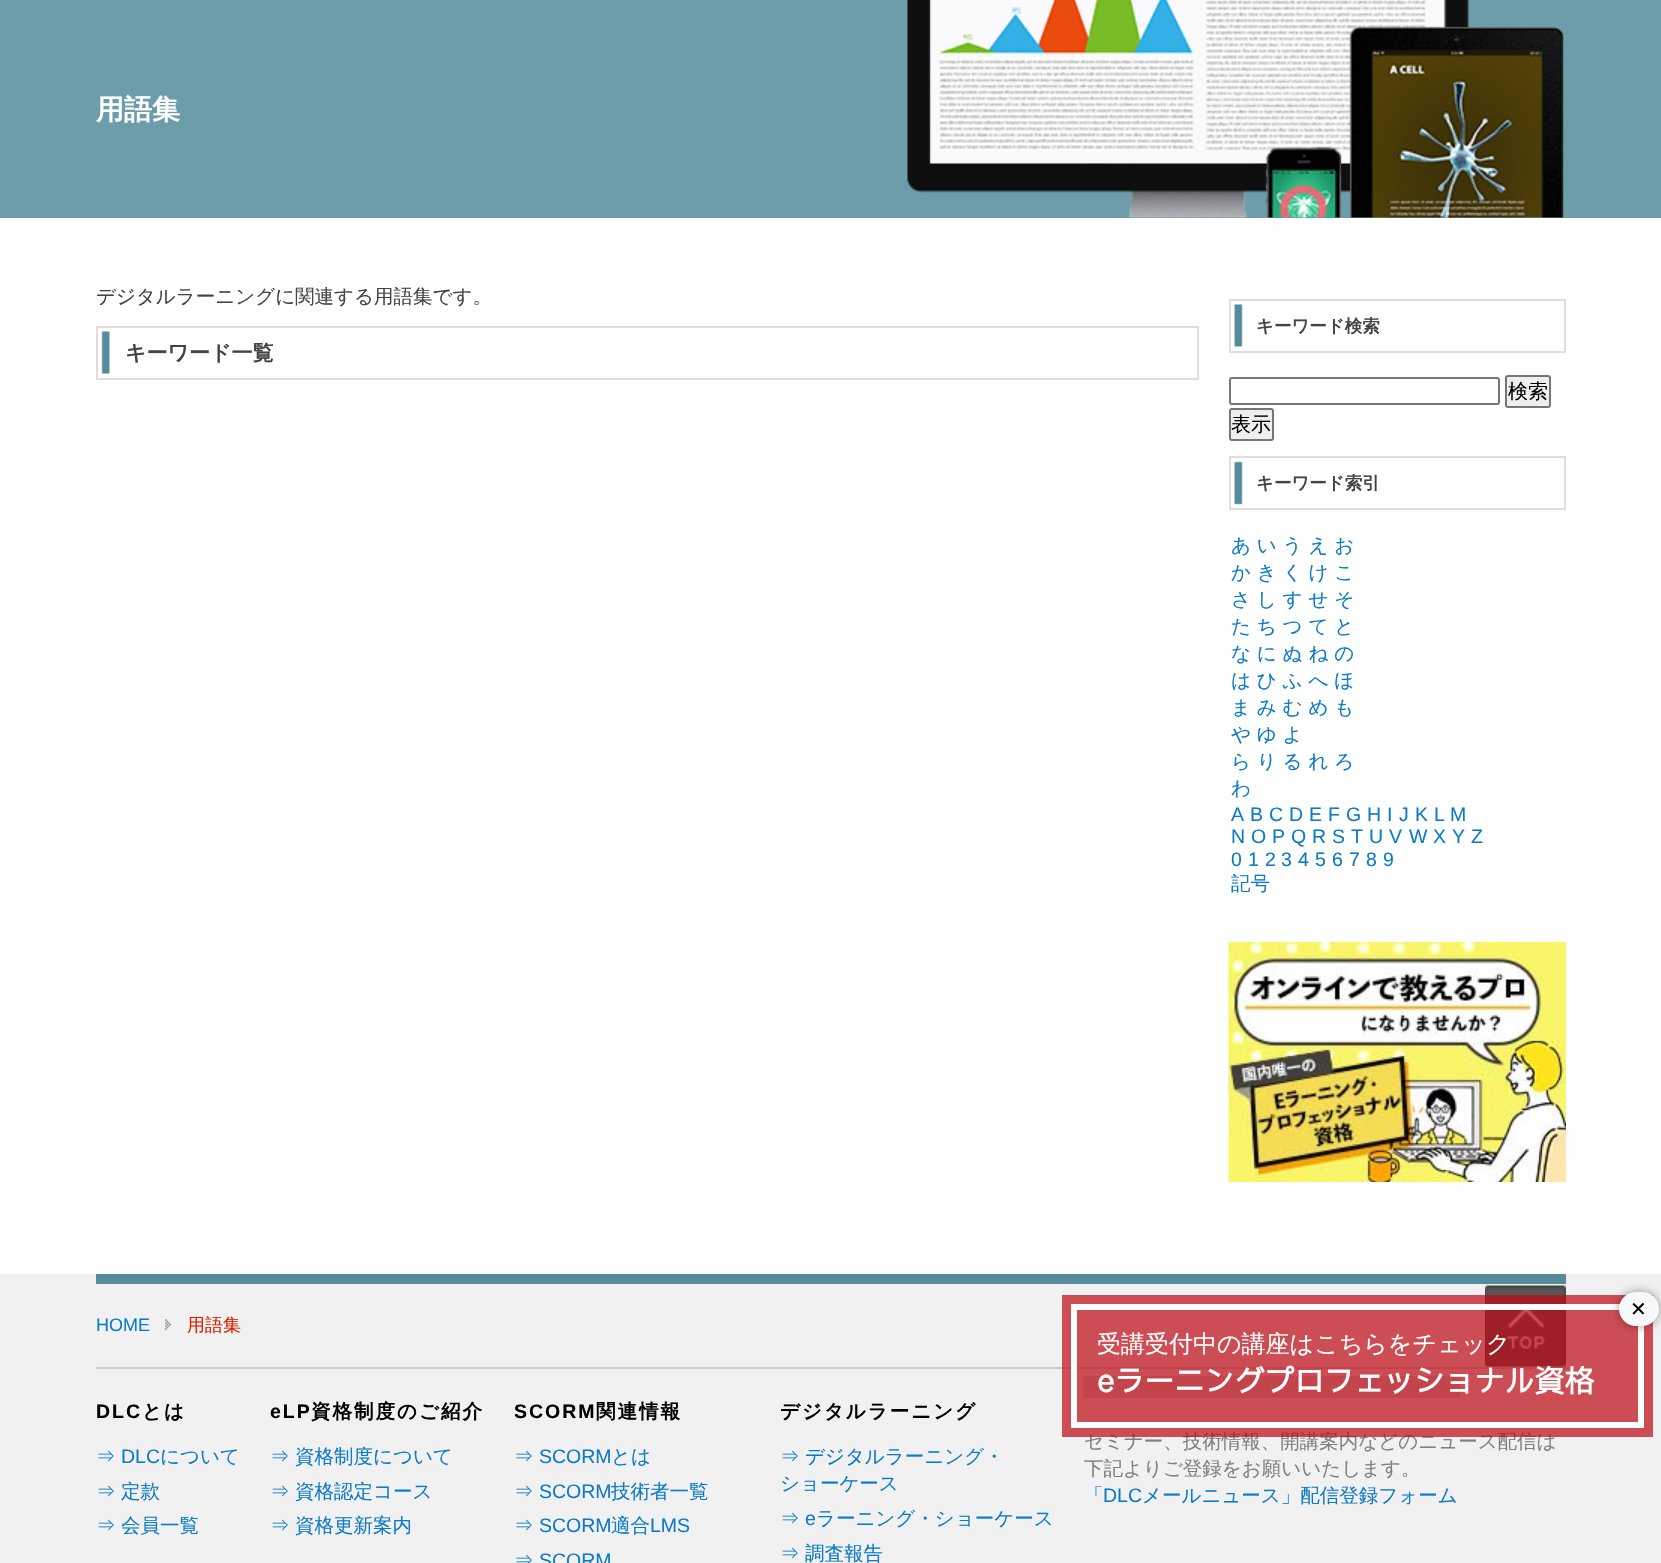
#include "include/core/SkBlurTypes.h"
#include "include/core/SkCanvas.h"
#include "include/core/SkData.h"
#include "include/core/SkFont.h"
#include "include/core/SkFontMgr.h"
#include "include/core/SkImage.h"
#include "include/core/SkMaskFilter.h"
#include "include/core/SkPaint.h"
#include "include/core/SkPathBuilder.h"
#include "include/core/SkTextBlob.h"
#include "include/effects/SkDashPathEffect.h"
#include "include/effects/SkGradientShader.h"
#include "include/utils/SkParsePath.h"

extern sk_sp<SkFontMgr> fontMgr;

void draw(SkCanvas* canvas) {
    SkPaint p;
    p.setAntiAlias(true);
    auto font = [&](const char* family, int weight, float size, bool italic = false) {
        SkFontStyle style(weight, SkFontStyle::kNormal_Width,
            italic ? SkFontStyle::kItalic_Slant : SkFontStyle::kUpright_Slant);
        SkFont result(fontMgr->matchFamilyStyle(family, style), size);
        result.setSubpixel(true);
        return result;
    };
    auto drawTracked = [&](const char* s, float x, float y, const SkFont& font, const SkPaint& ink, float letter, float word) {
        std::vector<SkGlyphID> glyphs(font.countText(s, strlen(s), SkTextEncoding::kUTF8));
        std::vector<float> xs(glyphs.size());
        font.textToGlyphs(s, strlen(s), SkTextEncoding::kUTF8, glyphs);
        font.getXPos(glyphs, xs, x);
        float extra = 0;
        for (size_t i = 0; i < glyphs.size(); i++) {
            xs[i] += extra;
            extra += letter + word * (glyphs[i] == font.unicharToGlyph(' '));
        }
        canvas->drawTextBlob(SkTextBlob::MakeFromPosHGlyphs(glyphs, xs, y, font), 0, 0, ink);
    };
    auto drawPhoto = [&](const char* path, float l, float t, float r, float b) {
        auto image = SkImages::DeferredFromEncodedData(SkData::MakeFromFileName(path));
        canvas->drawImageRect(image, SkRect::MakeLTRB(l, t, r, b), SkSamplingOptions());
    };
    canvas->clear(0xFFFFFFFF);
    p.setColor(0xFF6D9DAB);
    canvas->drawRect(SkRect::MakeLTRB(0, 0, 1661, 218), p);
    drawPhoto("media/1.png", 902, 0, 1564, 218);
    auto font1 = font("WenQuanYi Zen Hei", 700, 28);
    p.setColor(0xFFFFFFFF);
    canvas->drawString("用語集", 96, 119, font1, p);
    auto font2 = font("WenQuanYi Zen Hei", 500, 19.5f);
    p.setColor(0xFF444444);
    canvas->drawString("デジタルラーニングに関連する用語集です。", 96, 303, font2, p);
    drawPhoto("media/2.png", 101, 331, 110, 374);
    p.setStyle(SkPaint::kStroke_Style);
    p.setStrokeWidth(2);
    p.setColor(0xFFE3DCDB);
    canvas->drawRect(SkRect::MakeLTRB(97, 327, 1198, 379), p);
    auto font3 = font("WenQuanYi Zen Hei", 700, 21);
    p.setStyle(SkPaint::kFill_Style);
    p.setColor(0xFF444444);
    canvas->drawString("キーワード一覧", 125, 360, font3, p);
    drawPhoto("media/3.png", 1234, 304, 1243, 347);
    p.setStyle(SkPaint::kStroke_Style);
    p.setColor(0xFFE3DCDB);
    canvas->drawRect(SkRect::MakeLTRB(1230, 300, 1565, 352), p);
    auto font4 = font("WenQuanYi Zen Hei", 700, 17.5f);
    p.setStyle(SkPaint::kFill_Style);
    p.setColor(0xFF444444);
    canvas->drawString("キーワード検索", 1256, 332, font4, p);
    p.setStyle(SkPaint::kStroke_Style);
    p.setColor(0xFF767676);
    canvas->drawRoundRect(SkRect::MakeLTRB(1230, 378, 1499, 404), 2, 2, p);
    p.setStyle(SkPaint::kFill_Style);
    p.setColor(0xFFEFEFEF);
    canvas->drawRoundRect(SkRect::MakeLTRB(1506, 376, 1550, 407), 2, 2, p);
    p.setStyle(SkPaint::kStroke_Style);
    p.setColor(0xFF767676);
    canvas->drawRoundRect(SkRect::MakeLTRB(1506, 376, 1550, 407), 2, 2, p);
    auto font5 = font("WenQuanYi Zen Hei", 500, 20);
    p.setStyle(SkPaint::kFill_Style);
    p.setColor(0xFF000000);
    canvas->drawString("検索", 1508, 398, font5, p);
    p.setColor(0xFFEFEFEF);
    canvas->drawRoundRect(SkRect::MakeLTRB(1230, 409, 1273, 440), 2, 2, p);
    p.setStyle(SkPaint::kStroke_Style);
    p.setColor(0xFF767676);
    canvas->drawRoundRect(SkRect::MakeLTRB(1230, 409, 1273, 440), 2, 2, p);
    p.setStyle(SkPaint::kFill_Style);
    p.setColor(0xFF000000);
    canvas->drawString("表示", 1231, 431, font5, p);
    drawPhoto("media/4.png", 1234, 461, 1243, 505);
    p.setStyle(SkPaint::kStroke_Style);
    p.setColor(0xFFE3DCDB);
    canvas->drawRect(SkRect::MakeLTRB(1230, 457, 1565, 509), p);
    p.setStyle(SkPaint::kFill_Style);
    p.setColor(0xFF444444);
    canvas->drawString("キーワード索引", 1256, 489, font4, p);
    p.setColor(0xFF0D7BC8);
    {
        const struct { const char* s; float x, y; } items[] = {
            {"あ い う え お", 1231, 552},
            {"か き く け こ", 1231, 579},
            {"さ し す せ そ", 1231, 606},
            {"た ち つ て と", 1231, 633},
            {"な に ぬ ね の", 1231, 660},
            {"は ひ ふ へ ほ", 1231, 687},
            {"ま み む め も", 1231, 714},
            {"や ゆ よ", 1231, 741},
            {"ら り る れ ろ", 1231, 768},
            {"わ", 1231, 795},
        };
        for (auto [s, x, y] : items) {
            canvas->drawString(s, x, y, font2, p);
        }
    }
    auto font6 = font("Liberation Sans", 400, 19.5f);
    {
        const struct { const char* s; float x, y; } items[] = {
            {"A", 1231, 821},
            {"B", 1250, 821},
            {"C", 1269, 821},
            {"D", 1289, 821},
            {"E", 1309, 821},
            {"F", 1328, 821},
            {"G", 1346, 821},
            {"H", 1367, 821},
            {"I", 1387, 821},
            {"J", 1399, 821},
            {"K", 1415, 821},
            {"L", 1434, 821},
            {"M", 1450, 821},
            {"N", 1231, 843},
            {"O", 1251, 843},
            {"P", 1272, 843},
            {"Q", 1291, 843},
            {"R", 1312, 843},
            {"S", 1332, 843},
            {"T", 1351, 843},
            {"U", 1369, 843},
            {"V", 1389, 843},
            {"W", 1409, 843},
            {"X", 1433, 843},
            {"Y", 1452, 843},
            {"Z", 1471, 843},
            {"0", 1231, 866},
            {"1", 1248, 866},
            {"2", 1265, 866},
            {"3", 1281, 866},
            {"4", 1298, 866},
            {"5", 1315, 866},
            {"6", 1332, 866},
            {"7", 1349, 866},
            {"8", 1366, 866},
            {"9", 1383, 866},
        };
        for (auto [s, x, y] : items) {
            canvas->drawString(s, x, y, font6, p);
        }
    }
    canvas->drawString("記号", 1231, 890, font2, p);
    drawPhoto("media/5.png", 1228, 942, 1566, 1182);
    {
        const struct { float l, t, r, b; SkColor color; } items[] = {
            {0, 1274, 1661, 1563, 0xFFF1F1F1},
            {96, 1274, 1566, 1284, 0xFF548C9C},
            {96, 1367, 1566, 1369, 0xFFCCCCCC},
        };
        for (auto [l, t, r, b, color] : items) {
            p.setColor(color);
            canvas->drawRect(SkRect::MakeLTRB(l, t, r, b), p);
        }
    }
    drawPhoto("media/6.png", 1485, 1285, 1566, 1367);
    auto font7 = font("Liberation Sans", 400, 18);
    p.setColor(0xFF0D7BC8);
    canvas->drawString("HOME", 96, 1331, font7, p);
    drawPhoto("media/7.png", 165, 1319, 171, 1330);
    auto font8 = font("WenQuanYi Zen Hei", 500, 18);
    p.setColor(0xFFDD2001);
    canvas->drawString("用語集", 187, 1331, font8, p);
    auto font9 = font("Liberation Sans", 700, 19.5f);
    p.setColor(0xFF000000);
    drawTracked("DLC", 96, 1418, font9, p, 2, 0);
    auto font10 = font("WenQuanYi Zen Hei", 700, 19.5f);
    drawTracked("とは", 142, 1418, font10, p, 2, 0);
    p.setColor(0xFF0D7BC8);
    canvas->drawString("⇒", 96, 1463, font2, p);
    canvas->drawString("DLC", 121, 1463, font6, p);
    {
        const struct { const char* s; float x, y; } items[] = {
            {"について", 160, 1463},
            {"⇒", 96, 1498},
            {"定款", 121, 1498},
            {"⇒", 96, 1532},
            {"会員一覧", 121, 1532},
        };
        for (auto [s, x, y] : items) {
            canvas->drawString(s, x, y, font2, p);
        }
    }
    p.setColor(0xFF000000);
    drawTracked("eLP", 270, 1418, font9, p, 2, 0);
    drawTracked("資格制度のご紹介", 311, 1418, font10, p, 2, 0);
    p.setColor(0xFF0D7BC8);
    {
        const struct { const char* s; float x, y; } items[] = {
            {"⇒", 270, 1463},
            {"資格制度について", 295, 1463},
            {"⇒", 270, 1498},
            {"資格認定コース", 295, 1498},
            {"⇒", 270, 1532},
            {"資格更新案内", 295, 1532},
        };
        for (auto [s, x, y] : items) {
            canvas->drawString(s, x, y, font2, p);
        }
    }
    p.setColor(0xFF000000);
    drawTracked("SCORM", 514, 1418, font9, p, 2, 0);
    drawTracked("関連情報", 596, 1418, font10, p, 2, 0);
    p.setColor(0xFF0D7BC8);
    canvas->drawString("⇒", 514, 1463, font2, p);
    canvas->drawString("SCORM", 539, 1463, font6, p);
    canvas->drawString("とは", 611, 1463, font2, p);
    canvas->drawString("⇒", 514, 1498, font2, p);
    canvas->drawString("SCORM", 539, 1498, font6, p);
    canvas->drawString("技術者一覧", 611, 1498, font2, p);
    canvas->drawString("⇒", 514, 1532, font2, p);
    canvas->drawString("SCORM", 539, 1532, font6, p);
    canvas->drawString("適合", 611, 1532, font2, p);
    canvas->drawString("LMS", 650, 1532, font6, p);
    canvas->drawString("⇒", 514, 1567, font2, p);
    canvas->drawString("SCORM", 539, 1567, font6, p);
    p.setColor(0xFF000000);
    drawTracked("デジタルラーニング", 780, 1418, font10, p, 2, 0);
    p.setColor(0xFF0D7BC8);
    {
        const struct { const char* s; float x, y; } items[] = {
            {"⇒", 780, 1463},
            {"デジタルラーニング・", 805, 1463},
            {"ショーケース", 780, 1490},
            {"⇒", 780, 1525},
        };
        for (auto [s, x, y] : items) {
            canvas->drawString(s, x, y, font2, p);
        }
    }
    canvas->drawString("e", 805, 1525, font6, p);
    {
        const struct { const char* s; float x, y; } items[] = {
            {"ラーニング・ショーケース", 816, 1525},
            {"⇒", 780, 1560},
            {"調査報告", 805, 1560},
        };
        for (auto [s, x, y] : items) {
            canvas->drawString(s, x, y, font2, p);
        }
    }
    p.setColor(0xFFD3D3D3);
    canvas->drawRect(SkRect::MakeLTRB(1083, 1376, 1460, 1398), p);
    p.setColor(0xFF808080);
    canvas->drawString("セミナー、技術情報、開講案内などのニュース配信は", 1084, 1448, font2, p);
    canvas->drawString("下記よりご登録をお願いいたします。", 1084, 1475, font2, p);
    p.setColor(0xFF0D7BC8);
    canvas->drawString("「", 1084, 1502, font2, p);
    canvas->drawString("DLC", 1103, 1502, font6, p);
    canvas->drawString("メールニュース」配信登録フォーム", 1142, 1502, font2, p);
    p.setColor(0xB3BD0713);
    canvas->drawRect(SkRect::MakeLTRB(1062, 1295, 1653, 1437), p);
    p.setStyle(SkPaint::kStroke_Style);
    p.setStrokeWidth(6);
    p.setColor(0xFFFFFFFF);
    canvas->drawRect(SkRect::MakeLTRB(1074, 1307, 1641, 1425), p);
    p.setStyle(SkPaint::kFill_Style);
    p.setColor(0x66000000);
    p.setMaskFilter(SkMaskFilter::MakeBlur(kNormal_SkBlurStyle, 5));
    canvas->drawRoundRect(SkRect::MakeLTRB(1619, 1292, 1659, 1326), 17, 17, p);
    p.setMaskFilter(nullptr);
    p.setColor(0xFFF8F8F8);
    canvas->drawRoundRect(SkRect::MakeLTRB(1619, 1292, 1659, 1326), 17, 17, p);
    auto font11 = font("DejaVu Sans", 400, 20);
    p.setColor(0xFF000000);
    canvas->drawString("✕", 1630, 1316, font11, p);
    auto font12 = font("WenQuanYi Zen Hei", 500, 24);
    p.setColor(0xFFFFFFFF);
    canvas->drawString("受講受付中の講座はこちらをチェック", 1097, 1352, font12, p);
    auto font13 = font("IBM Plex Sans JP", 700, 30);
    canvas->drawString("eラーニングプロフェッショナル資格", 1097, 1392, font13, p);
}
